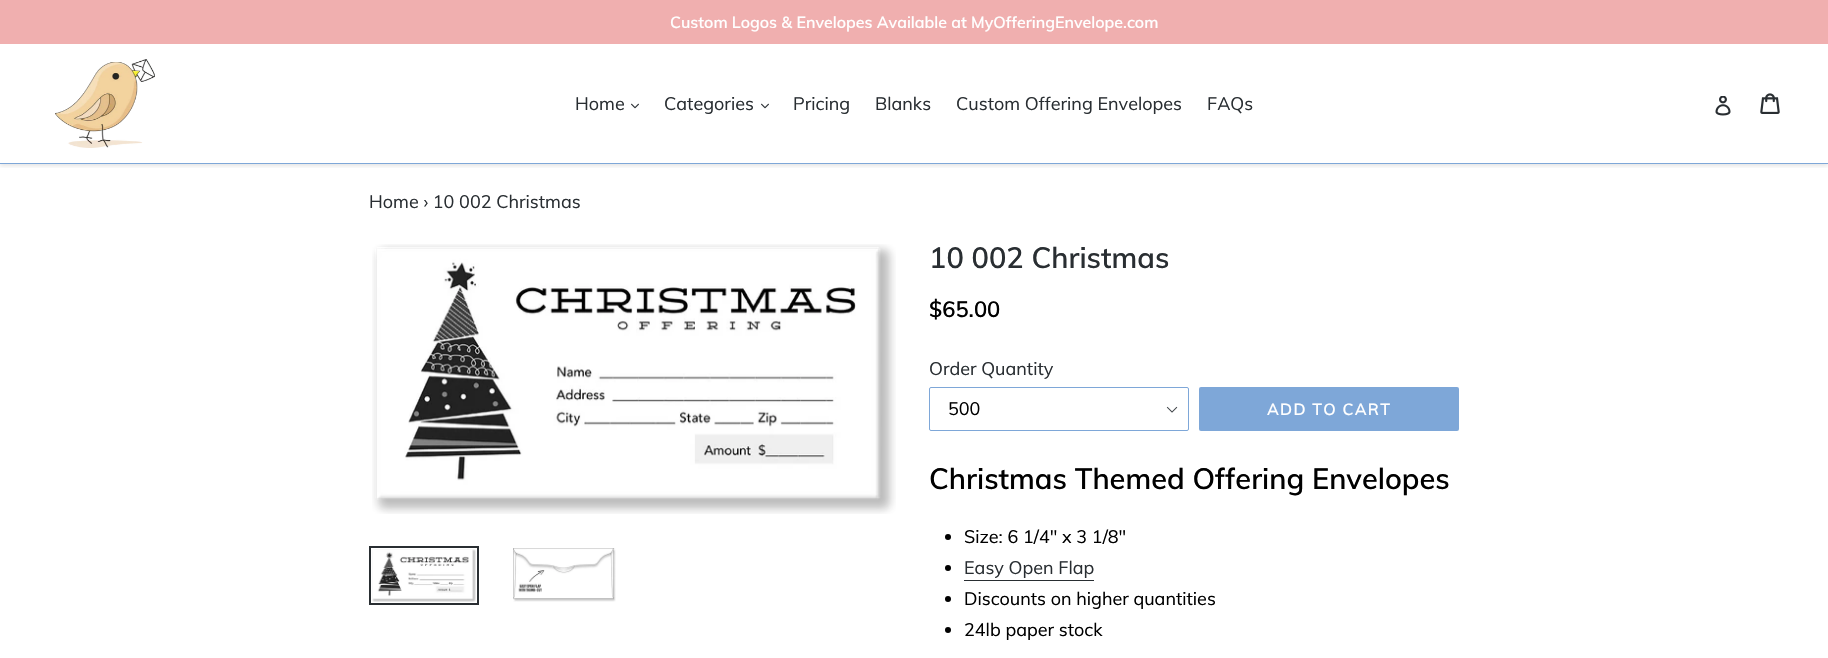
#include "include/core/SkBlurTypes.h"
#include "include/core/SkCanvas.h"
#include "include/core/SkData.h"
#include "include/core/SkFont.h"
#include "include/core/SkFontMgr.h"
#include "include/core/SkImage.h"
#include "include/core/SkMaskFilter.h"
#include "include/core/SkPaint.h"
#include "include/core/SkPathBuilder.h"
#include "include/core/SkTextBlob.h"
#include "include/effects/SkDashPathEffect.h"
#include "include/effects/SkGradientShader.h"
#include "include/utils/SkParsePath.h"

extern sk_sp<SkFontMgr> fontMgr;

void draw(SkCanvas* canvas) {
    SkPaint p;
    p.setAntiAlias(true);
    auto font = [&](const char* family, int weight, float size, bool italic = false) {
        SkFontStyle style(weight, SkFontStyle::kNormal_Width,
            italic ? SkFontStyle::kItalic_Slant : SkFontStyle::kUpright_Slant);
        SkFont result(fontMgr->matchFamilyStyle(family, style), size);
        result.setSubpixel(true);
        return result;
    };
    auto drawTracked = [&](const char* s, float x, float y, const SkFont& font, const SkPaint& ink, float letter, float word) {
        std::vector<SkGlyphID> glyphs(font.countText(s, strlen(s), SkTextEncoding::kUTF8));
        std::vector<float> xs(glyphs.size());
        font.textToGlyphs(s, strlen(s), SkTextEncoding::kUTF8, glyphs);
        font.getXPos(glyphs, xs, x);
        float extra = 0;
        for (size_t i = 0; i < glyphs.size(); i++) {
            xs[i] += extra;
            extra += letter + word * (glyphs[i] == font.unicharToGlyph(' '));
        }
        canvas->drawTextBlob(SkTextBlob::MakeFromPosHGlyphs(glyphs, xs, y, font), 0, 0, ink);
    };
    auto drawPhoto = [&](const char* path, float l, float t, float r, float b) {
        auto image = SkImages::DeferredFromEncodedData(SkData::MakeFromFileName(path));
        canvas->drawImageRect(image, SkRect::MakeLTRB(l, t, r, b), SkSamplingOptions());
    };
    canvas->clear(0xFFFFFFFF);
    canvas->save();
    canvas->clipRect(SkRect::MakeLTRB(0, 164, 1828, 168));
    p.setColor(0x1A000000);
    p.setMaskFilter(SkMaskFilter::MakeBlur(kNormal_SkBlurStyle, 2));
    canvas->drawRect(SkRect::MakeLTRB(0, 2, 1828, 166), p);
    p.setMaskFilter(nullptr);
    canvas->restore();
    p.setColor(0xFFF0AFAF);
    canvas->drawRect(SkRect::MakeLTRB(0, 0, 1828, 44), p);
    auto font1 = font("Muli", 600, 16);
    p.setColor(0xFFFFFFFF);
    canvas->drawString("Custom Logos & Envelopes Available at MyOfferingEnvelope.com", 670, 28, font1, p);
    p.setColor(0xFF7EA7D8);
    canvas->drawRect(SkRect::MakeLTRB(0, 163, 1828, 164), p);
    drawPhoto("media/1.png", 55, 59, 155, 148);
    auto font2 = font("Muli", 400, 18);
    p.setColor(0xFF292E32);
    canvas->drawString("Home", 575, 110, font2, p);
    drawPhoto("media/2.png", 631, 103, 639, 109);
    canvas->drawString("Categories", 664, 110, font2, p);
    drawPhoto("media/2.png", 761, 103, 769, 109);
    {
        const struct { const char* s; float x, y; } items[] = {
            {"Pricing", 793, 110},
            {"Blanks", 875, 110},
            {"Custom Offering Envelopes", 956, 110},
            {"FAQs", 1207, 110},
        };
        for (auto [s, x, y] : items) {
            canvas->drawString(s, x, y, font2, p);
        }
    }
    drawPhoto("media/3.png", 1715, 96, 1731, 116);
    drawPhoto("media/4.png", 1760, 93, 1780, 114);
    canvas->drawString("Home › 10 002 Christmas", 369, 208, font2, p);
    drawPhoto("media/5.png", 372, 244, 896, 514);
    p.setStyle(SkPaint::kStroke_Style);
    p.setStrokeWidth(2);
    canvas->drawRect(SkRect::MakeLTRB(370, 547, 478, 604), p);
    drawPhoto("media/6.png", 372, 549, 476, 602);
    drawPhoto("media/7.png", 513, 548, 616, 602);
    auto font3 = font("Muli", 600, 29);
    p.setStyle(SkPaint::kFill_Style);
    canvas->drawString("10 002 Christmas", 929, 268, font3, p);
    auto font4 = font("Muli", 600, 22);
    p.setColor(0xFF000000);
    canvas->drawString("$65.00", 929, 317, font4, p);
    p.setColor(0xFF292E32);
    canvas->drawString("Order Quantity", 929, 375, font2, p);
    drawPhoto("media/8.png", 1166, 406, 1178, 413);
    p.setStyle(SkPaint::kStroke_Style);
    p.setStrokeWidth(1);
    p.setColor(0xFF7EA7D8);
    canvas->drawRoundRect(SkRect::MakeLTRB(929.5f, 387.5f, 1188.5f, 430.5f), 1.5f, 1.5f, p);
    p.setStyle(SkPaint::kFill_Style);
    p.setColor(0xFF000000);
    canvas->drawString("500", 948, 415, font2, p);
    p.setColor(0xFF7EA7D8);
    canvas->drawRoundRect(SkRect::MakeLTRB(1199, 387, 1459, 431), 2, 2, p);
    p.setColor(0xFFFFFFFF);
    drawTracked("ADD TO CART", 1267, 415, font1, p, 1.25f, 0);
    p.setColor(0xFF000000);
    canvas->drawString("Christmas Themed Offering Envelopes", 929, 489, font3, p);
    canvas->drawCircle(948, 537, 3, p);
    canvas->drawString("Size: 6 1/4\" x 3 1/8\"", 964, 543, font2, p);
    canvas->drawCircle(948, 568, 3, p);
    p.setColor(0xFF292E32);
    canvas->drawString("Easy Open Flap", 964, 574, font2, p);
    canvas->drawRect(SkRect::MakeLTRB(964, 580, 1094, 581), p);
    p.setColor(0xFF000000);
    canvas->drawCircle(948, 599, 3, p);
    canvas->drawString("Discounts on higher quantities", 964, 605, font2, p);
    canvas->drawCircle(948, 630, 3, p);
    canvas->drawString("24lb paper stock", 964, 636, font2, p);
}
